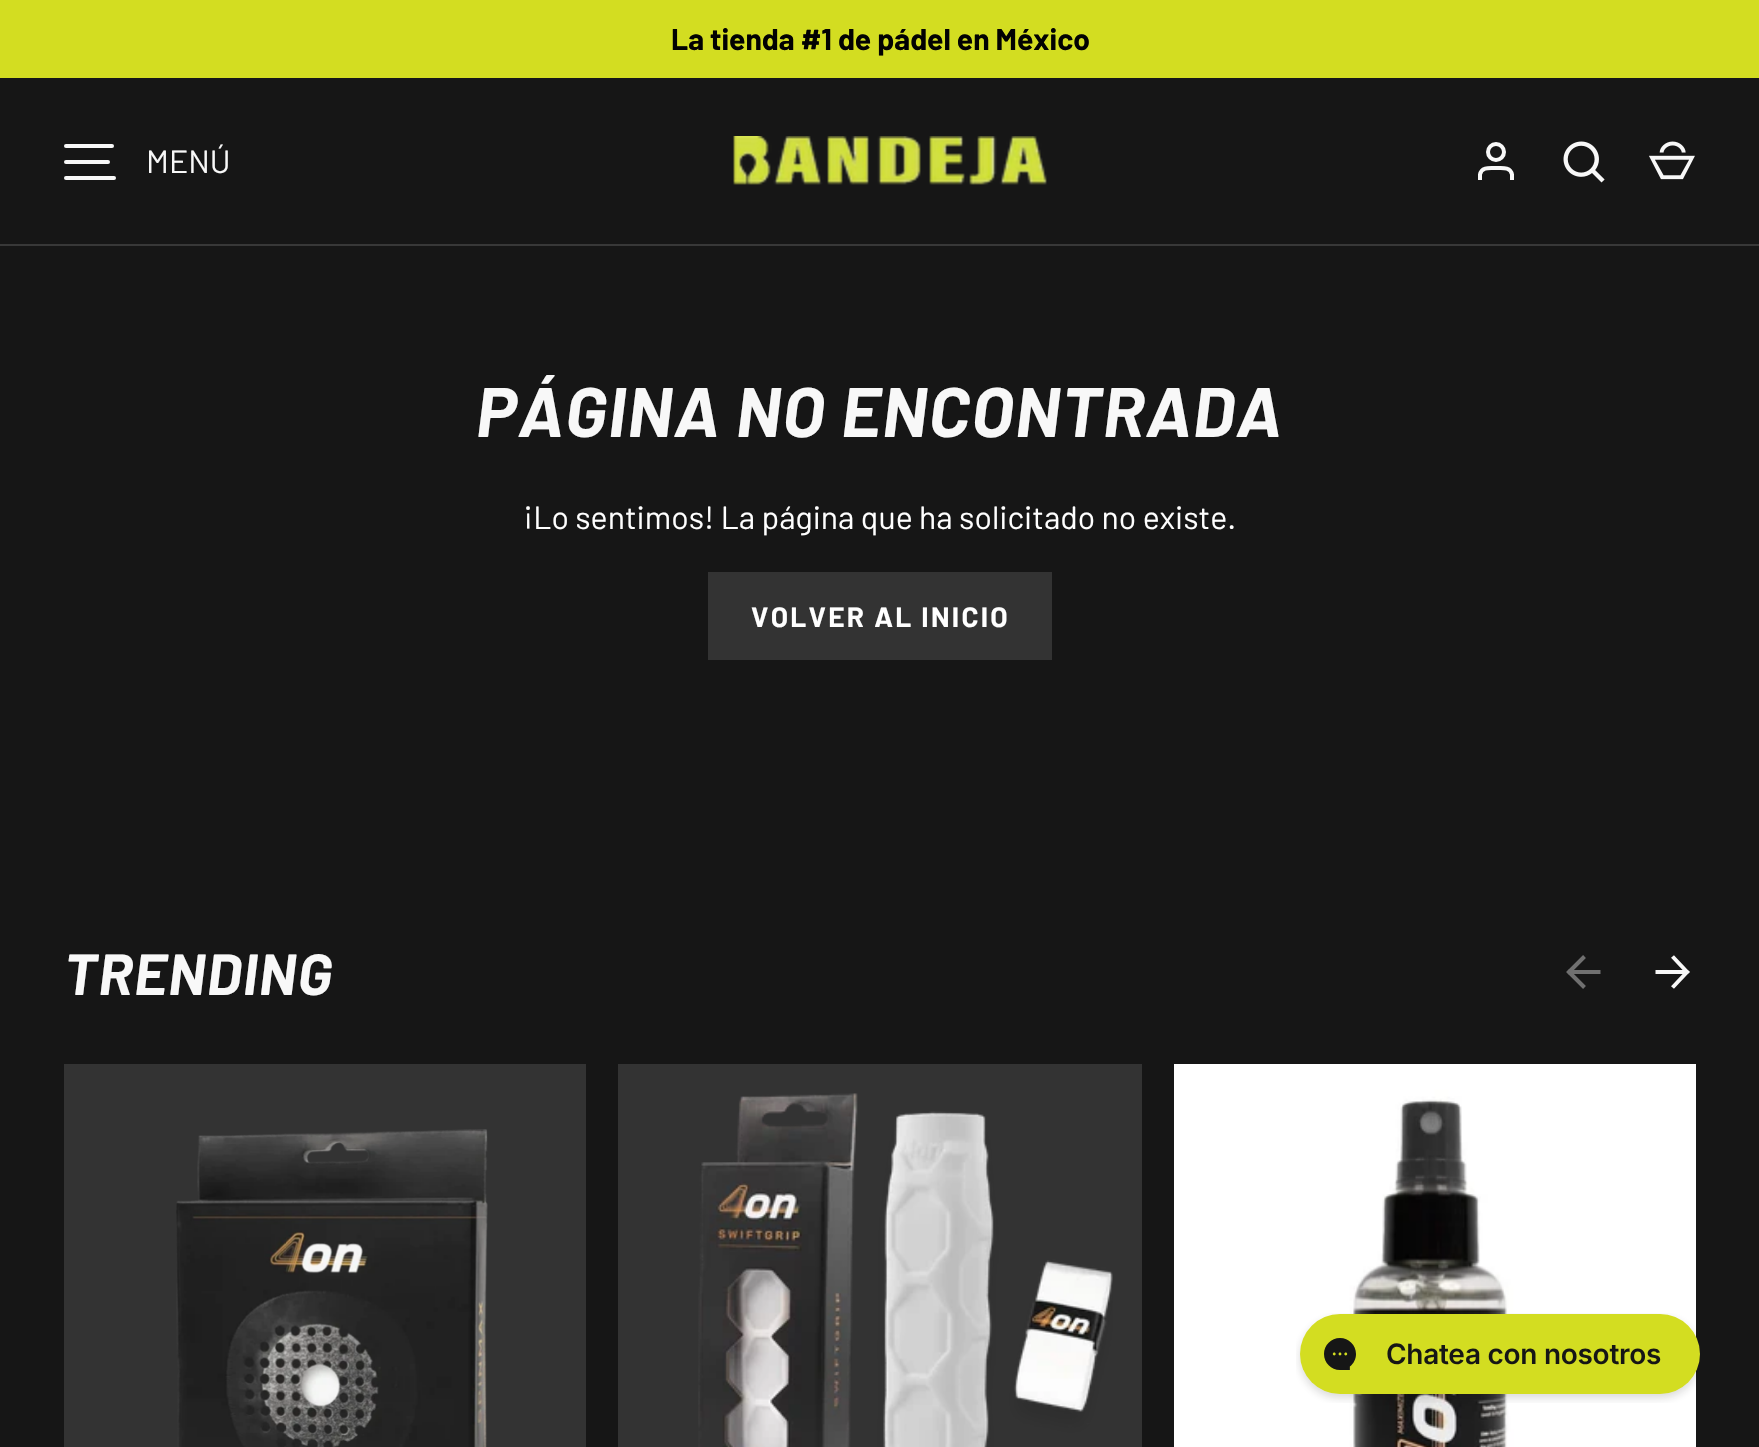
#include "include/core/SkBlurTypes.h"
#include "include/core/SkCanvas.h"
#include "include/core/SkData.h"
#include "include/core/SkFont.h"
#include "include/core/SkFontMgr.h"
#include "include/core/SkImage.h"
#include "include/core/SkMaskFilter.h"
#include "include/core/SkPaint.h"
#include "include/core/SkPathBuilder.h"
#include "include/core/SkTextBlob.h"
#include "include/effects/SkDashPathEffect.h"
#include "include/effects/SkGradientShader.h"
#include "include/utils/SkParsePath.h"

extern sk_sp<SkFontMgr> fontMgr;

void draw(SkCanvas* canvas) {
    SkPaint p;
    p.setAntiAlias(true);
    auto font = [&](const char* family, int weight, float size, bool italic = false) {
        SkFontStyle style(weight, SkFontStyle::kNormal_Width,
            italic ? SkFontStyle::kItalic_Slant : SkFontStyle::kUpright_Slant);
        SkFont result(fontMgr->matchFamilyStyle(family, style), size);
        result.setSubpixel(true);
        return result;
    };
    auto drawTracked = [&](const char* s, float x, float y, const SkFont& font, const SkPaint& ink, float letter, float word) {
        std::vector<SkGlyphID> glyphs(font.countText(s, strlen(s), SkTextEncoding::kUTF8));
        std::vector<float> xs(glyphs.size());
        font.textToGlyphs(s, strlen(s), SkTextEncoding::kUTF8, glyphs);
        font.getXPos(glyphs, xs, x);
        float extra = 0;
        for (size_t i = 0; i < glyphs.size(); i++) {
            xs[i] += extra;
            extra += letter + word * (glyphs[i] == font.unicharToGlyph(' '));
        }
        canvas->drawTextBlob(SkTextBlob::MakeFromPosHGlyphs(glyphs, xs, y, font), 0, 0, ink);
    };
    auto drawPhoto = [&](const char* path, float l, float t, float r, float b) {
        auto image = SkImages::DeferredFromEncodedData(SkData::MakeFromFileName(path));
        canvas->drawImageRect(image, SkRect::MakeLTRB(l, t, r, b), SkSamplingOptions());
    };
    canvas->clear(0xFF161616);
    p.setColor(0xFFD3DD21);
    canvas->drawRect(SkRect::MakeLTRB(0, 0, 1759, 78), p);
    auto font1 = font("Barlow", 700, 30);
    p.setColor(0xFF020202);
    canvas->drawString("La tienda #1 de pádel en México", 671, 50, font1, p);
    p.setColor(0xFFF8F8F8);
    canvas->drawRoundRect(SkRect::MakeLTRB(64, 144, 114, 148), 2, 2, p);
    canvas->drawRoundRect(SkRect::MakeLTRB(64, 160, 110, 164), 2, 2, p);
    canvas->drawRoundRect(SkRect::MakeLTRB(64, 176, 116, 180), 2, 2, p);
    auto font2 = font("Barlow", 400, 32);
    canvas->drawString("MENÚ", 146, 173, font2, p);
    drawPhoto("media/1.png", 733, 136, 1047, 185);
    p.setStyle(SkPaint::kStroke_Style);
    p.setStrokeWidth(4);
    canvas->drawCircle(1496, 152, 8, p);
    canvas->drawPath(SkPathBuilder().moveTo(1512, 180).lineTo(1512, 174.5f).cubicTo(1510.5f, 166.5f, 1502, 168, 1496, 168).cubicTo(1490, 168, 1481.5f, 166.5f, 1480, 174.5f).lineTo(1480, 180).detach(), p);
    drawPhoto("media/2.png", 1563, 141, 1605, 183);
    drawPhoto("media/3.png", 1649, 141, 1695, 180);
    p.setStyle(SkPaint::kFill_Style);
    p.setColor(0xFF383838);
    canvas->drawRect(SkRect::MakeLTRB(0, 244, 1759, 246), p);
    auto font3 = font("Barlow", 700, 70, true);
    p.setColor(0xFFF8F8F8);
    drawTracked("PÁGINA NO ENCONTRADA", 476, 437, font3, p, 1.4f, 0);
    p.setColor(0xFFFFFFFF);
    canvas->drawString("¡Lo sentimos! La página que ha solicitado no existe.", 523, 529, font2, p);
    p.setColor(0xFF333333);
    canvas->drawRect(SkRect::MakeLTRB(708, 572, 1052, 660), p);
    auto font4 = font("Barlow", 700, 28);
    p.setColor(0xFFFFFFFF);
    drawTracked("VOLVER AL INICIO", 751, 627, font4, p, 2.25f, 0);
    auto font5 = font("Barlow", 700, 58, true);
    p.setColor(0xFFF8F8F8);
    drawTracked("TRENDING", 64, 995, font5, p, 1.25f, 0);
    p.setStyle(SkPaint::kStroke_Style);
    p.setColor(0xFF707070);
    canvas->drawPath(SkPathBuilder().moveTo(1567.5f, 970.5f).lineTo(1584.5f, 987.5f).moveTo(1569.5f, 972).lineTo(1600.5f, 972).moveTo(1567.5f, 973.5f).lineTo(1584.5f, 956.5f).detach(), p);
    p.setColor(0xFFF8F8F8);
    canvas->drawPath(SkPathBuilder().moveTo(1672.5f, 987.5f).lineTo(1688.5f, 970.5f).moveTo(1655.5f, 972).lineTo(1686.5f, 972).moveTo(1672.5f, 956.5f).lineTo(1688.5f, 973.5f).detach(), p);
    p.setStyle(SkPaint::kFill_Style);
    p.setColor(0xFF333333);
    canvas->drawRect(SkRect::MakeLTRB(64, 1064, 586, 1447), p);
    drawPhoto("media/4.png", 176, 1129, 488, 1447);
    canvas->drawRect(SkRect::MakeLTRB(618, 1064, 1142, 1447), p);
    drawPhoto("media/5.png", 698, 1093, 1113, 1447);
    drawPhoto("media/6.png", 1174, 1064, 1696, 1447);
    drawPhoto("media/7.png", 1296, 1313, 1700, 1403);
}
